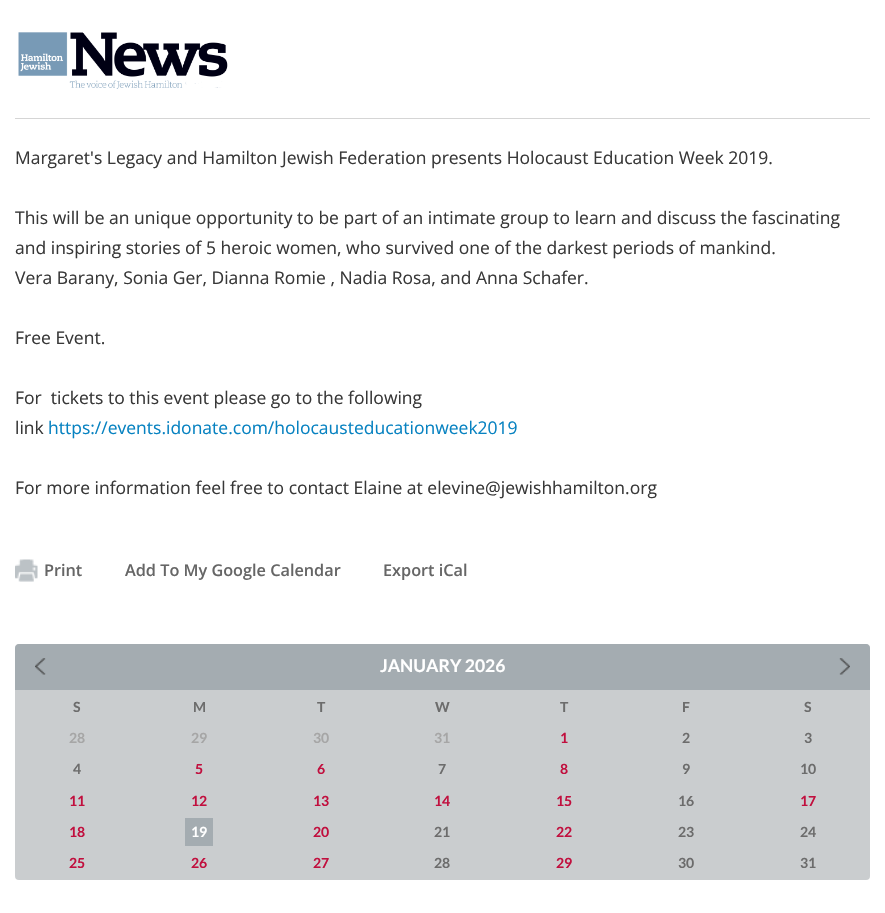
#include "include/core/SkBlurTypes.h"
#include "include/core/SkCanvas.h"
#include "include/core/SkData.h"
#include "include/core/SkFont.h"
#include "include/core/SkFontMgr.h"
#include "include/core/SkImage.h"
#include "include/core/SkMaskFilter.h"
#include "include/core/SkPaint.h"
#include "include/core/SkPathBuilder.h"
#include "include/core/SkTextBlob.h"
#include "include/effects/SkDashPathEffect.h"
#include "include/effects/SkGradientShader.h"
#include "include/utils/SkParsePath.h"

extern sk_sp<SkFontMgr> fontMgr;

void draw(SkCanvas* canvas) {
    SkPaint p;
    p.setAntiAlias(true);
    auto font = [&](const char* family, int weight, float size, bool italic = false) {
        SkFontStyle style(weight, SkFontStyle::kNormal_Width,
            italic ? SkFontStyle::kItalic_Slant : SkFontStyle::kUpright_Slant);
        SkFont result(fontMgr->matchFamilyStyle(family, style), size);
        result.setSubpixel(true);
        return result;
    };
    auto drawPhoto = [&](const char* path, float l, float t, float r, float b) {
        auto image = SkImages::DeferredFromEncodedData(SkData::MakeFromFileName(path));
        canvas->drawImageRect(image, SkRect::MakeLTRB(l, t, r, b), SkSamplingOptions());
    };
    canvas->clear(0xFFFFFFFF);
    drawPhoto("media/1.png", 18, 32, 228, 89);
    p.setColor(0xFFD5D5D5);
    canvas->drawRect(SkRect::MakeLTRB(15, 118, 870, 119), p);
    auto font1 = font("Open Sans", 400, 17.5f);
    p.setColor(0xFF383838);
    {
        const struct { const char* s; float x, y; } items[] = {
            {"Margaret's Legacy and Hamilton Jewish Federation presents Holocaust Education Week 2019.", 15, 164},
            {"This will be an unique opportunity to be part of an intimate group to learn and discuss the fascinating", 15, 224},
            {"and inspiring stories of 5 heroic women, who survived one of the darkest periods of mankind.", 15, 254},
            {"Vera Barany, Sonia Ger, Dianna Romie , Nadia Rosa, and Anna Schafer.", 15, 284},
            {"Free Event.", 15, 344},
            {"For  tickets to this event please go to the following", 15, 404},
            {"link", 15, 434},
        };
        for (auto [s, x, y] : items) {
            canvas->drawString(s, x, y, font1, p);
        }
    }
    p.setColor(0xFF0782C1);
    canvas->drawString("https://events.idonate.com/holocausteducationweek2019", 48, 434, font1, p);
    p.setColor(0xFF383838);
    canvas->drawString("For more information feel free to contact Elaine at elevine@jewishhamilton.org", 15, 494, font1, p);
    drawPhoto("media/2.png", 15, 559, 38, 582);
    auto font2 = font("Open Sans", 600, 16.25f);
    p.setColor(0xFF666666);
    {
        const struct { const char* s; float x, y; } items[] = {
            {"Print", 44, 576},
            {"Add To My Google Calendar", 125, 576},
            {"Export iCal", 383, 576},
        };
        for (auto [s, x, y] : items) {
            canvas->drawString(s, x, y, font2, p);
        }
    }
    p.setColor(0xFFCACDCF);
    canvas->drawRoundRect(SkRect::MakeLTRB(15, 644, 870, 880), 4, 4, p);
    p.setColor(0xFFA4ACB1);
    canvas->drawPath(SkPathBuilder().moveTo(19, 644).lineTo(866, 644).cubicTo(868, 644, 870, 646, 870, 648).lineTo(870, 690).lineTo(15, 690).lineTo(15, 648).cubicTo(15, 646, 17, 644, 19, 644).close().detach(), p);
    drawPhoto("media/3.png", 35, 658, 46, 675);
    auto font3 = font("Lato", 700, 17.5f);
    p.setColor(0xFFFFFFFF);
    canvas->drawString("JANUARY 2026", 380, 672, font3, p);
    drawPhoto("media/4.png", 839, 658, 850, 675);
    auto font4 = font("Lato", 700, 14);
    p.setColor(0xFF6C6C6C);
    {
        const struct { const char* s; float x, y; } items[] = {
            {"S", 73, 712},
            {"M", 193, 712},
            {"T", 317, 712},
            {"W", 435, 712},
            {"T", 560, 712},
            {"F", 682, 712},
            {"S", 804, 712},
        };
        for (auto [s, x, y] : items) {
            canvas->drawString(s, x, y, font4, p);
        }
    }
    p.setColor(0xFFA6A6A6);
    {
        const struct { const char* s; float x, y; } items[] = {
            {"28", 69, 743},
            {"29", 191, 743},
            {"30", 313, 743},
            {"31", 434, 743},
        };
        for (auto [s, x, y] : items) {
            canvas->drawString(s, x, y, font4, p);
        }
    }
    p.setColor(0xFFC10F3E);
    canvas->drawString("1", 560, 743, font4, p);
    p.setColor(0xFF6C6C6C);
    {
        const struct { const char* s; float x, y; } items[] = {
            {"2", 682, 743},
            {"3", 804, 743},
            {"4", 73, 774},
        };
        for (auto [s, x, y] : items) {
            canvas->drawString(s, x, y, font4, p);
        }
    }
    p.setColor(0xFFC10F3E);
    canvas->drawString("5", 195, 774, font4, p);
    canvas->drawString("6", 317, 774, font4, p);
    p.setColor(0xFF6C6C6C);
    canvas->drawString("7", 438, 774, font4, p);
    p.setColor(0xFFC10F3E);
    canvas->drawString("8", 560, 774, font4, p);
    p.setColor(0xFF6C6C6C);
    canvas->drawString("9", 682, 774, font4, p);
    canvas->drawString("10", 800, 774, font4, p);
    p.setColor(0xFFC10F3E);
    {
        const struct { const char* s; float x, y; } items[] = {
            {"11", 69, 806},
            {"12", 191, 806},
            {"13", 313, 806},
            {"14", 434, 806},
            {"15", 556, 806},
        };
        for (auto [s, x, y] : items) {
            canvas->drawString(s, x, y, font4, p);
        }
    }
    p.setColor(0xFF6C6C6C);
    canvas->drawString("16", 678, 806, font4, p);
    p.setColor(0xFFC10F3E);
    canvas->drawString("17", 800, 806, font4, p);
    canvas->drawString("18", 69, 837, font4, p);
    p.setColor(0xFFA4ACB1);
    canvas->drawRect(SkRect::MakeLTRB(185, 818, 213, 846), p);
    p.setColor(0xFFFFFFFF);
    canvas->drawString("19", 191, 837, font4, p);
    p.setColor(0xFFC10F3E);
    canvas->drawString("20", 313, 837, font4, p);
    p.setColor(0xFF6C6C6C);
    canvas->drawString("21", 434, 837, font4, p);
    p.setColor(0xFFC10F3E);
    canvas->drawString("22", 556, 837, font4, p);
    p.setColor(0xFF6C6C6C);
    canvas->drawString("23", 678, 837, font4, p);
    canvas->drawString("24", 800, 837, font4, p);
    p.setColor(0xFFC10F3E);
    {
        const struct { const char* s; float x, y; } items[] = {
            {"25", 69, 868},
            {"26", 191, 868},
            {"27", 313, 868},
        };
        for (auto [s, x, y] : items) {
            canvas->drawString(s, x, y, font4, p);
        }
    }
    p.setColor(0xFF6C6C6C);
    canvas->drawString("28", 434, 868, font4, p);
    p.setColor(0xFFC10F3E);
    canvas->drawString("29", 556, 868, font4, p);
    p.setColor(0xFF6C6C6C);
    canvas->drawString("30", 678, 868, font4, p);
    canvas->drawString("31", 800, 868, font4, p);
}
